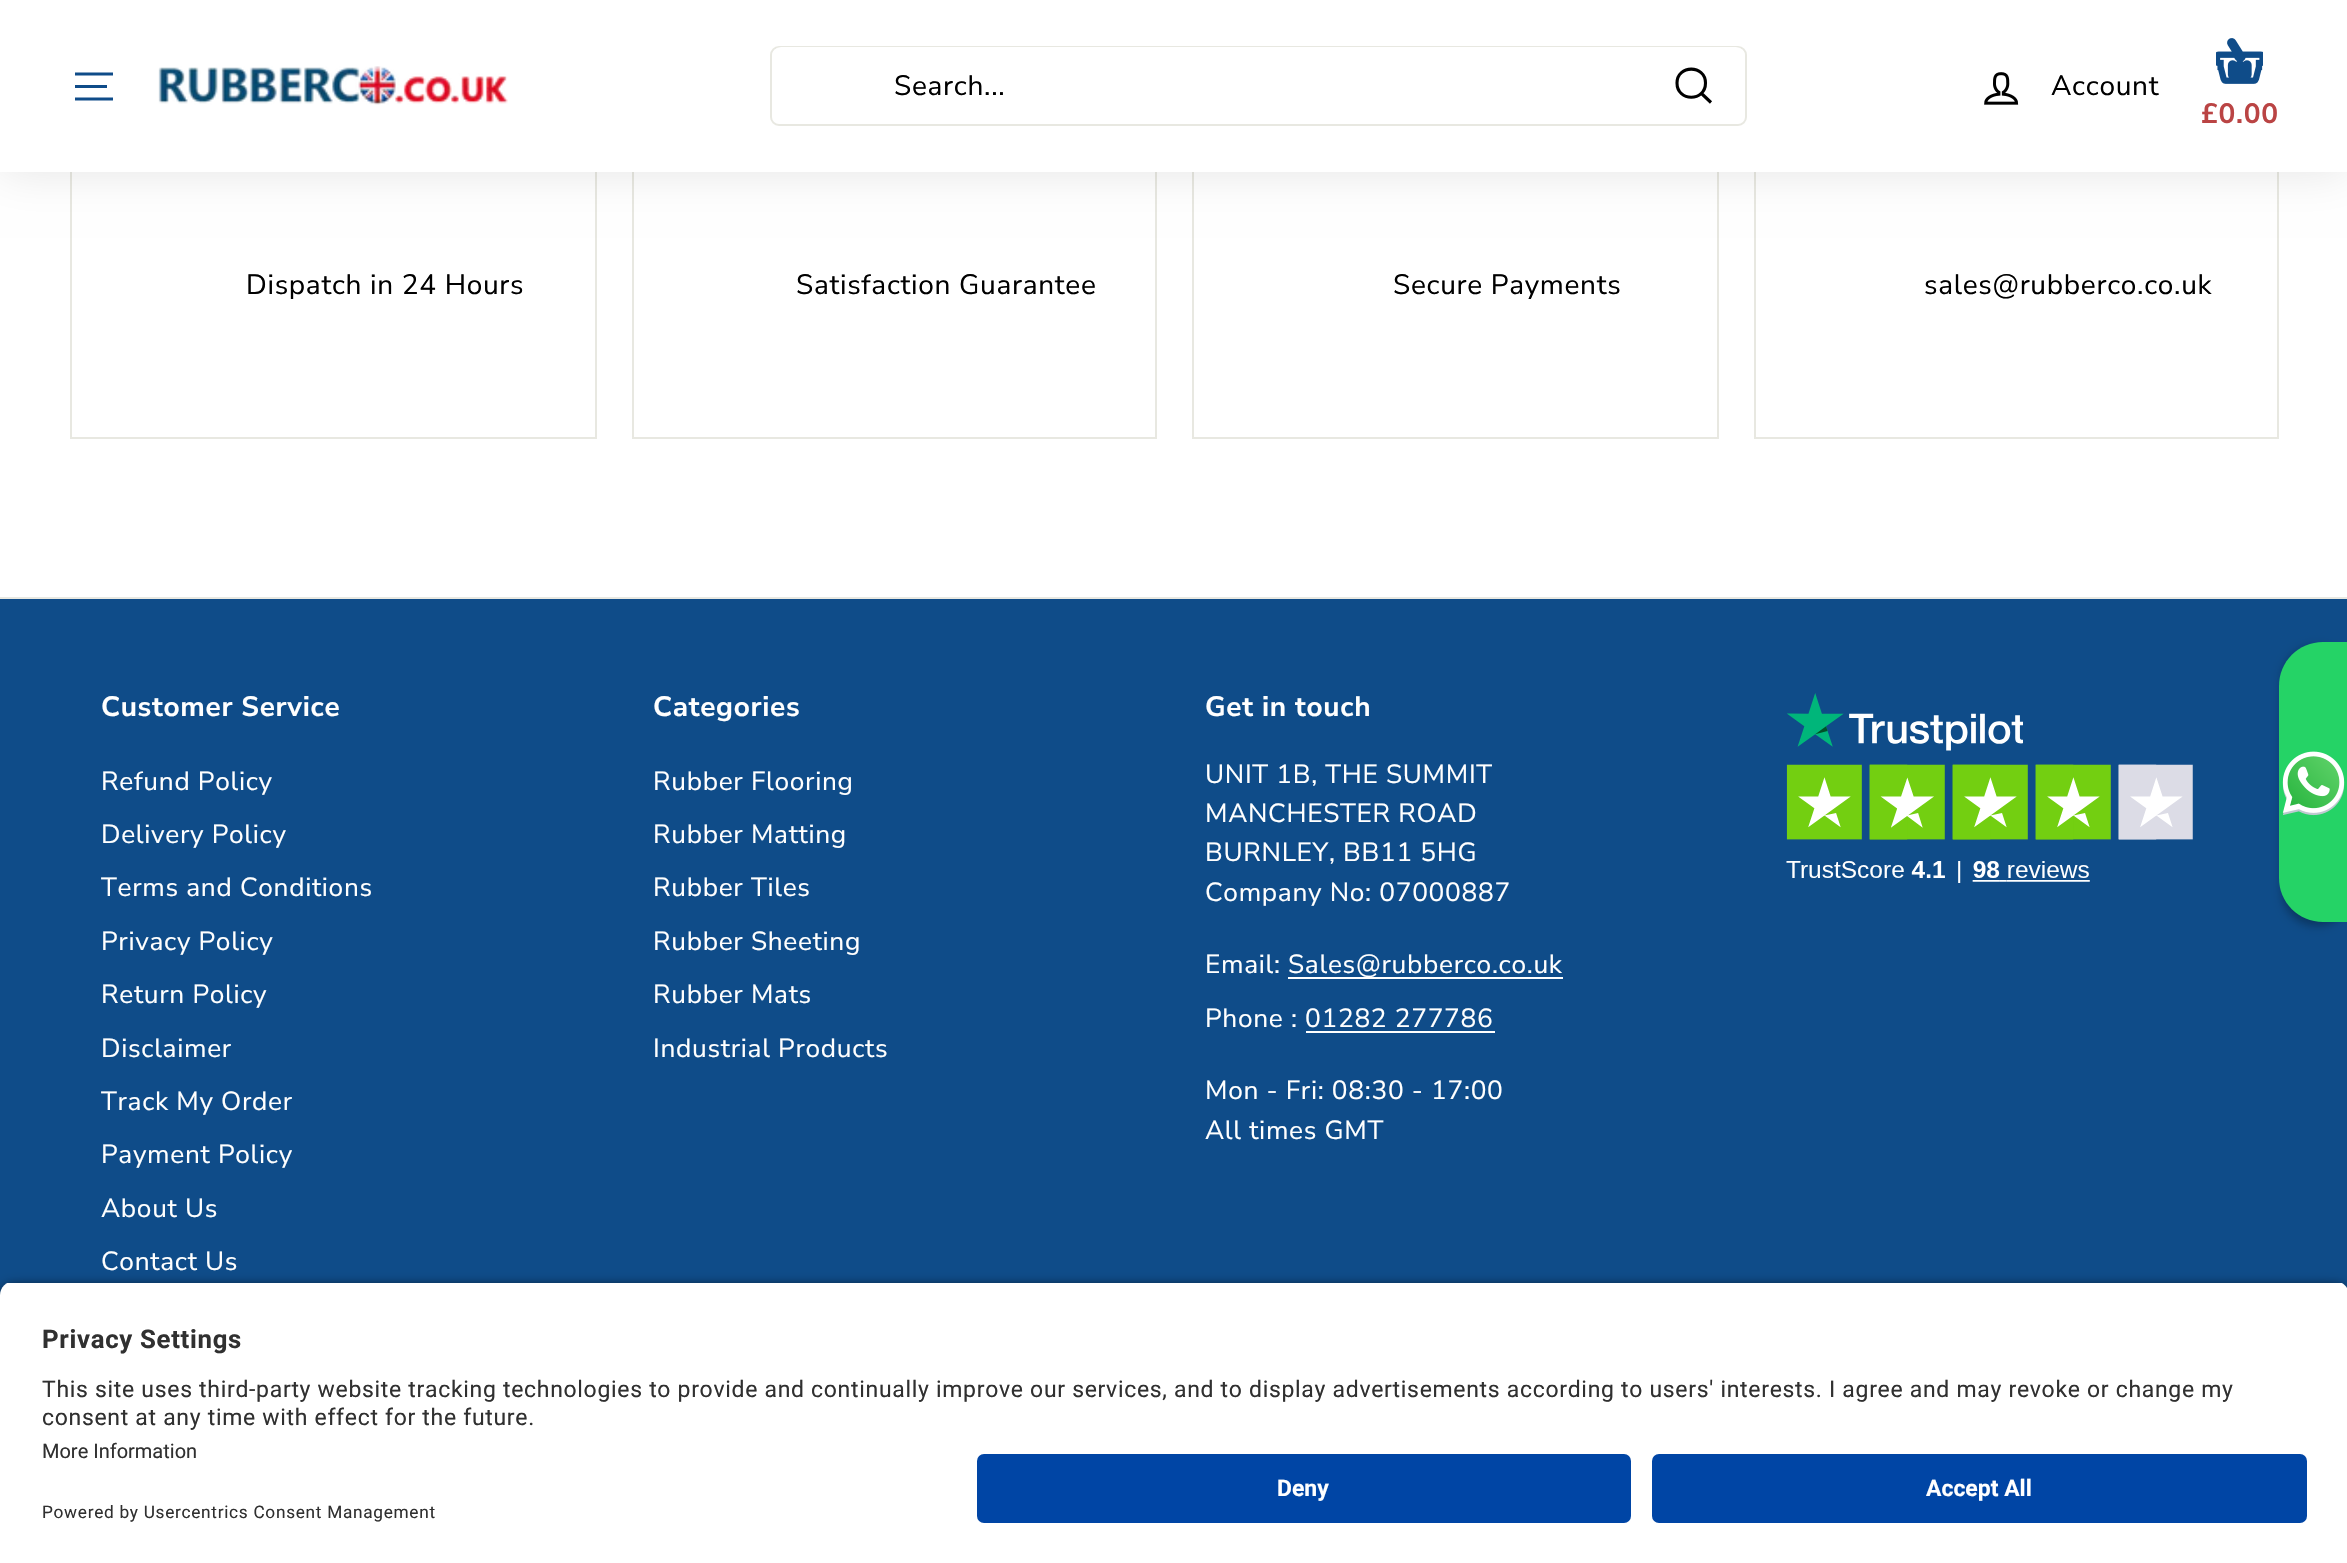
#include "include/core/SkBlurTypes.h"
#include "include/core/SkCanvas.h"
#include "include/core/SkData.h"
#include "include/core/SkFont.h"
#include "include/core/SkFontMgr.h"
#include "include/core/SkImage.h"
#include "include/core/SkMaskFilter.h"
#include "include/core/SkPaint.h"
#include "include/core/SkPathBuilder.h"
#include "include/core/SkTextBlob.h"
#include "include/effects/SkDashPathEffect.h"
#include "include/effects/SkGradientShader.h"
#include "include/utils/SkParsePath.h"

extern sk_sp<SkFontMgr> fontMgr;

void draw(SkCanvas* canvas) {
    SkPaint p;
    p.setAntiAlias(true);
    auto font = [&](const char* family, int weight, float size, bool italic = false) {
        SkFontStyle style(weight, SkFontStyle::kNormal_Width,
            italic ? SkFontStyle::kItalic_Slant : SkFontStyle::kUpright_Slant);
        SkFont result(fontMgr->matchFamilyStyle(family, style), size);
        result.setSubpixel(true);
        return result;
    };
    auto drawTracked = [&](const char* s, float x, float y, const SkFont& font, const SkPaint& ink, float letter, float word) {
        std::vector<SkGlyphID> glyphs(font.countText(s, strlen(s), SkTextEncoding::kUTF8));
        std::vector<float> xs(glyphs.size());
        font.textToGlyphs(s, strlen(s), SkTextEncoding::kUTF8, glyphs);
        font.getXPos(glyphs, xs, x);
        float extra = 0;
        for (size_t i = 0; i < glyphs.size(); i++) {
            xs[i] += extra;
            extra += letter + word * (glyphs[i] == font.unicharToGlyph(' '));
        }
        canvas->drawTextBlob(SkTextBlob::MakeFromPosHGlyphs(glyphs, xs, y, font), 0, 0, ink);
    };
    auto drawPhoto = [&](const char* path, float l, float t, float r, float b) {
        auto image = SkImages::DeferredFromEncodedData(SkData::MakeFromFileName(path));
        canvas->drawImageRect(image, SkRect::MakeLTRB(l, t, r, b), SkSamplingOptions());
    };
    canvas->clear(0xFFFFFFFF);
    p.setStyle(SkPaint::kStroke_Style);
    p.setStrokeWidth(2);
    p.setColor(0xFFE8E8E1);
    canvas->drawRect(SkRect::MakeLTRB(71, 132, 596, 438), p);
    canvas->drawRect(SkRect::MakeLTRB(633, 132, 1156, 438), p);
    canvas->drawRect(SkRect::MakeLTRB(1193, 132, 1718, 438), p);
    canvas->drawRect(SkRect::MakeLTRB(1755, 132, 2278, 438), p);
    p.setStyle(SkPaint::kFill_Style);
    p.setColor(0x1A000000);
    p.setMaskFilter(SkMaskFilter::MakeBlur(kNormal_SkBlurStyle, 22));
    canvas->drawRect(SkRect::MakeLTRB(0, 0, 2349, 172), p);
    p.setMaskFilter(nullptr);
    p.setColor(0xFFFFFFFF);
    canvas->drawRect(SkRect::MakeLTRB(0, 0, 2347, 172), p);
    p.setStyle(SkPaint::kStroke_Style);
    p.setStrokeWidth(3);
    p.setColor(0xFF0F4C89);
    canvas->drawPath(SkPathBuilder().moveTo(75, 74).lineTo(113, 74).detach(), p);
    p.setStyle(SkPaint::kFill_Style);
    canvas->drawRect(SkRect::MakeLTRB(75, 85, 107, 88), p);
    p.setStyle(SkPaint::kStroke_Style);
    canvas->drawPath(SkPathBuilder().moveTo(75, 99).lineTo(113, 99).detach(), p);
    drawPhoto("media/1.png", 158, 66, 508, 105);
    p.setStrokeWidth(2);
    p.setColor(0xFFE8E8E1);
    canvas->drawRoundRect(SkRect::MakeLTRB(771, 47, 1746, 125), 8, 8, p);
    p.setStyle(SkPaint::kFill_Style);
    p.setColor(0xFFFFFFFF);
    canvas->drawRoundRect(SkRect::MakeLTRB(772, 47, 1745, 124), 9, 9, p);
    auto font1 = font("Nunito Sans", 400, 28);
    p.setColor(0xFF000000);
    drawTracked("Search...", 894, 95, font1, p, 0.7f, 0);
    p.setStyle(SkPaint::kStroke_Style);
    p.setStrokeWidth(3.1f);
    canvas->drawPath(SkPathBuilder().moveTo(1705.5f, 83).cubicTo(1705.5f, 102, 1677, 102, 1677, 83).cubicTo(1677, 64.5f, 1705.5f, 64.5f, 1705.5f, 83).close().moveTo(1711, 102.5f).lineTo(1701.5f, 93.5f).detach(), p);
    drawPhoto("media/2.png", 1984, 72, 2019, 105);
    p.setStyle(SkPaint::kFill_Style);
    drawTracked("Account", 2051, 95, font1, p, 0.7f, 0);
    drawPhoto("media/3.png", 2216, 38, 2263, 84);
    auto font2 = font("Nunito Sans", 700, 28);
    p.setColor(0xFFBA4444);
    drawTracked("£0.00", 2201, 123, font2, p, 0.7f, 0);
    p.setColor(0xFF000000);
    {
        const struct { const char* s; float x, y; } items[] = {
            {"Dispatch in 24 Hours", 246, 294},
            {"Satisfaction Guarantee", 796, 294},
            {"Secure Payments", 1393, 294},
            {"sales@rubberco.co.uk", 1924, 294},
        };
        for (auto [s, x, y] : items) {
            drawTracked(s, x, y, font1, p, 0.7f, 0);
        }
    }
    p.setColor(0xFF0F4C89);
    canvas->drawRect(SkRect::MakeLTRB(0, 599, 2347, 1295), p);
    p.setColor(0xFFE8E8E1);
    canvas->drawRect(SkRect::MakeLTRB(0, 597, 2347, 599), p);
    p.setColor(0xFFFFFFFF);
    drawTracked("Customer Service", 101, 716, font2, p, 0.7f, 0);
    auto font3 = font("Nunito Sans", 400, 26.25f);
    {
        const struct { const char* s; float x, y; } items[] = {
            {"Refund Policy", 101, 790},
            {"Delivery Policy", 101, 843},
            {"Terms and Conditions", 101, 896},
            {"Privacy Policy", 101, 950},
            {"Return Policy", 101, 1003},
            {"Disclaimer", 101, 1057},
            {"Track My Order", 101, 1110},
            {"Payment Policy", 101, 1163},
            {"About Us", 101, 1217},
            {"Contact Us", 101, 1270},
        };
        for (auto [s, x, y] : items) {
            drawTracked(s, x, y, font3, p, 0.7f, 0);
        }
    }
    drawTracked("Categories", 653, 716, font2, p, 0.7f, 0);
    {
        const struct { const char* s; float x, y; } items[] = {
            {"Rubber Flooring", 653, 790},
            {"Rubber Matting", 653, 843},
            {"Rubber Tiles", 653, 896},
            {"Rubber Sheeting", 653, 950},
            {"Rubber Mats", 653, 1003},
            {"Industrial Products", 653, 1057},
        };
        for (auto [s, x, y] : items) {
            drawTracked(s, x, y, font3, p, 0.7f, 0);
        }
    }
    drawTracked("Get in touch", 1205, 716, font2, p, 0.7f, 0);
    {
        const struct { const char* s; float x, y; } items[] = {
            {"UNIT 1B, THE SUMMIT", 1205, 783},
            {"MANCHESTER ROAD", 1205, 822},
            {"BURNLEY, BB11 5HG", 1205, 861},
            {"Company No: 07000887", 1205, 901},
            {"Email:", 1205, 973},
        };
        for (auto [s, x, y] : items) {
            drawTracked(s, x, y, font3, p, 0.7f, 0);
        }
    }
    canvas->drawRect(SkRect::MakeLTRB(1288, 977, 1563, 979), p);
    drawTracked("Sales@rubberco.co.uk", 1288, 973, font3, p, 0.7f, 0);
    drawTracked("Phone : 01282 277786", 1205, 1027, font3, p, 0.7f, 0);
    canvas->drawRect(SkRect::MakeLTRB(1306, 1031, 1495, 1033), p);
    drawTracked("Mon - Fri: 08:30 - 17:00", 1205, 1099, font3, p, 0.7f, 0);
    drawTracked("All times GMT", 1205, 1139, font3, p, 0.7f, 0);
    drawPhoto("media/4.png", 1786, 693, 2193, 883);
    p.setColor(0x4D000000);
    p.setMaskFilter(SkMaskFilter::MakeBlur(kNormal_SkBlurStyle, 5));
    canvas->drawRoundRect(SkRect::MakeLTRB(2282, 646, 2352, 926), 44, 44, p);
    p.setMaskFilter(nullptr);
    p.setColor(0xFF25D366);
    canvas->drawPath(SkPathBuilder().moveTo(2323, 642).lineTo(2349, 642).lineTo(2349, 922).lineTo(2323, 922).cubicTo(2298.5f, 922, 2279, 902.5f, 2279, 878).lineTo(2279, 686).cubicTo(2279, 661.5f, 2298.5f, 642, 2323, 642).close().detach(), p);
    drawPhoto("media/5.png", 2282, 751, 2345, 816);
    p.setColor(0xCC000000);
    p.setMaskFilter(SkMaskFilter::MakeBlur(kNormal_SkBlurStyle, 6));
    canvas->drawRoundRect(SkRect::MakeLTRB(0, 1286, 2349, 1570), 14, 14, p);
    p.setMaskFilter(nullptr);
    canvas->save();
    canvas->clipPath(SkPathBuilder().moveTo(14, 1281).lineTo(2335, 1281).cubicTo(2342.5f, 1281, 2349, 1287.5f, 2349, 1295).lineTo(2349, 1440).lineTo(0, 1440).lineTo(0, 1295).cubicTo(0, 1287.5f, 6.5f, 1281, 14, 1281).close().detach(), true);
    p.setColor(0xFFFFFFFF);
    canvas->drawRect(SkRect::MakeLTRB(0, 1283, 2347, 1440), p);
    canvas->restore();
    auto font4 = font("Roboto", 700, 25.75f);
    p.setColor(0xFF303030);
    drawTracked("Privacy Settings", 42, 1348, font4, p, 0.7f, 0);
    auto font5 = font("Roboto", 400, 22.97f);
    drawTracked("This site uses third-party website tracking technologies to provide and continually improve our services, and to display advertisements according to users' interests. I agree and may revoke or change my", 42, 1397, font5, p, 0.7f, 0);
    drawTracked("consent at any time with effect for the future.", 42, 1425, font5, p, 0.7f, 0);
    p.setColor(0xFFFFFFFF);
    canvas->drawRect(SkRect::MakeLTRB(0, 1440, 2347, 1563), p);
    auto font6 = font("Roboto", 400, 20);
    p.setColor(0xFF303030);
    canvas->drawString("More Information", 42, 1458, font6, p);
    auto font7 = font("Roboto", 400, 17.25f);
    drawTracked("Powered by Usercentrics Consent Management", 42, 1518, font7, p, 0.7f, 0);
    p.setColor(0xFF0045A5);
    canvas->drawRoundRect(SkRect::MakeLTRB(977, 1454, 1631, 1523), 7, 7, p);
    auto font8 = font("Roboto", 700, 22.97f);
    p.setColor(0xFFFFFFFF);
    canvas->drawString("Deny", 1277, 1496, font8, p);
    p.setColor(0xFF0045A5);
    canvas->drawRoundRect(SkRect::MakeLTRB(1652, 1454, 2307, 1523), 7, 7, p);
    p.setColor(0xFFFFFFFF);
    canvas->drawString("Accept All", 1926, 1496, font8, p);
}
